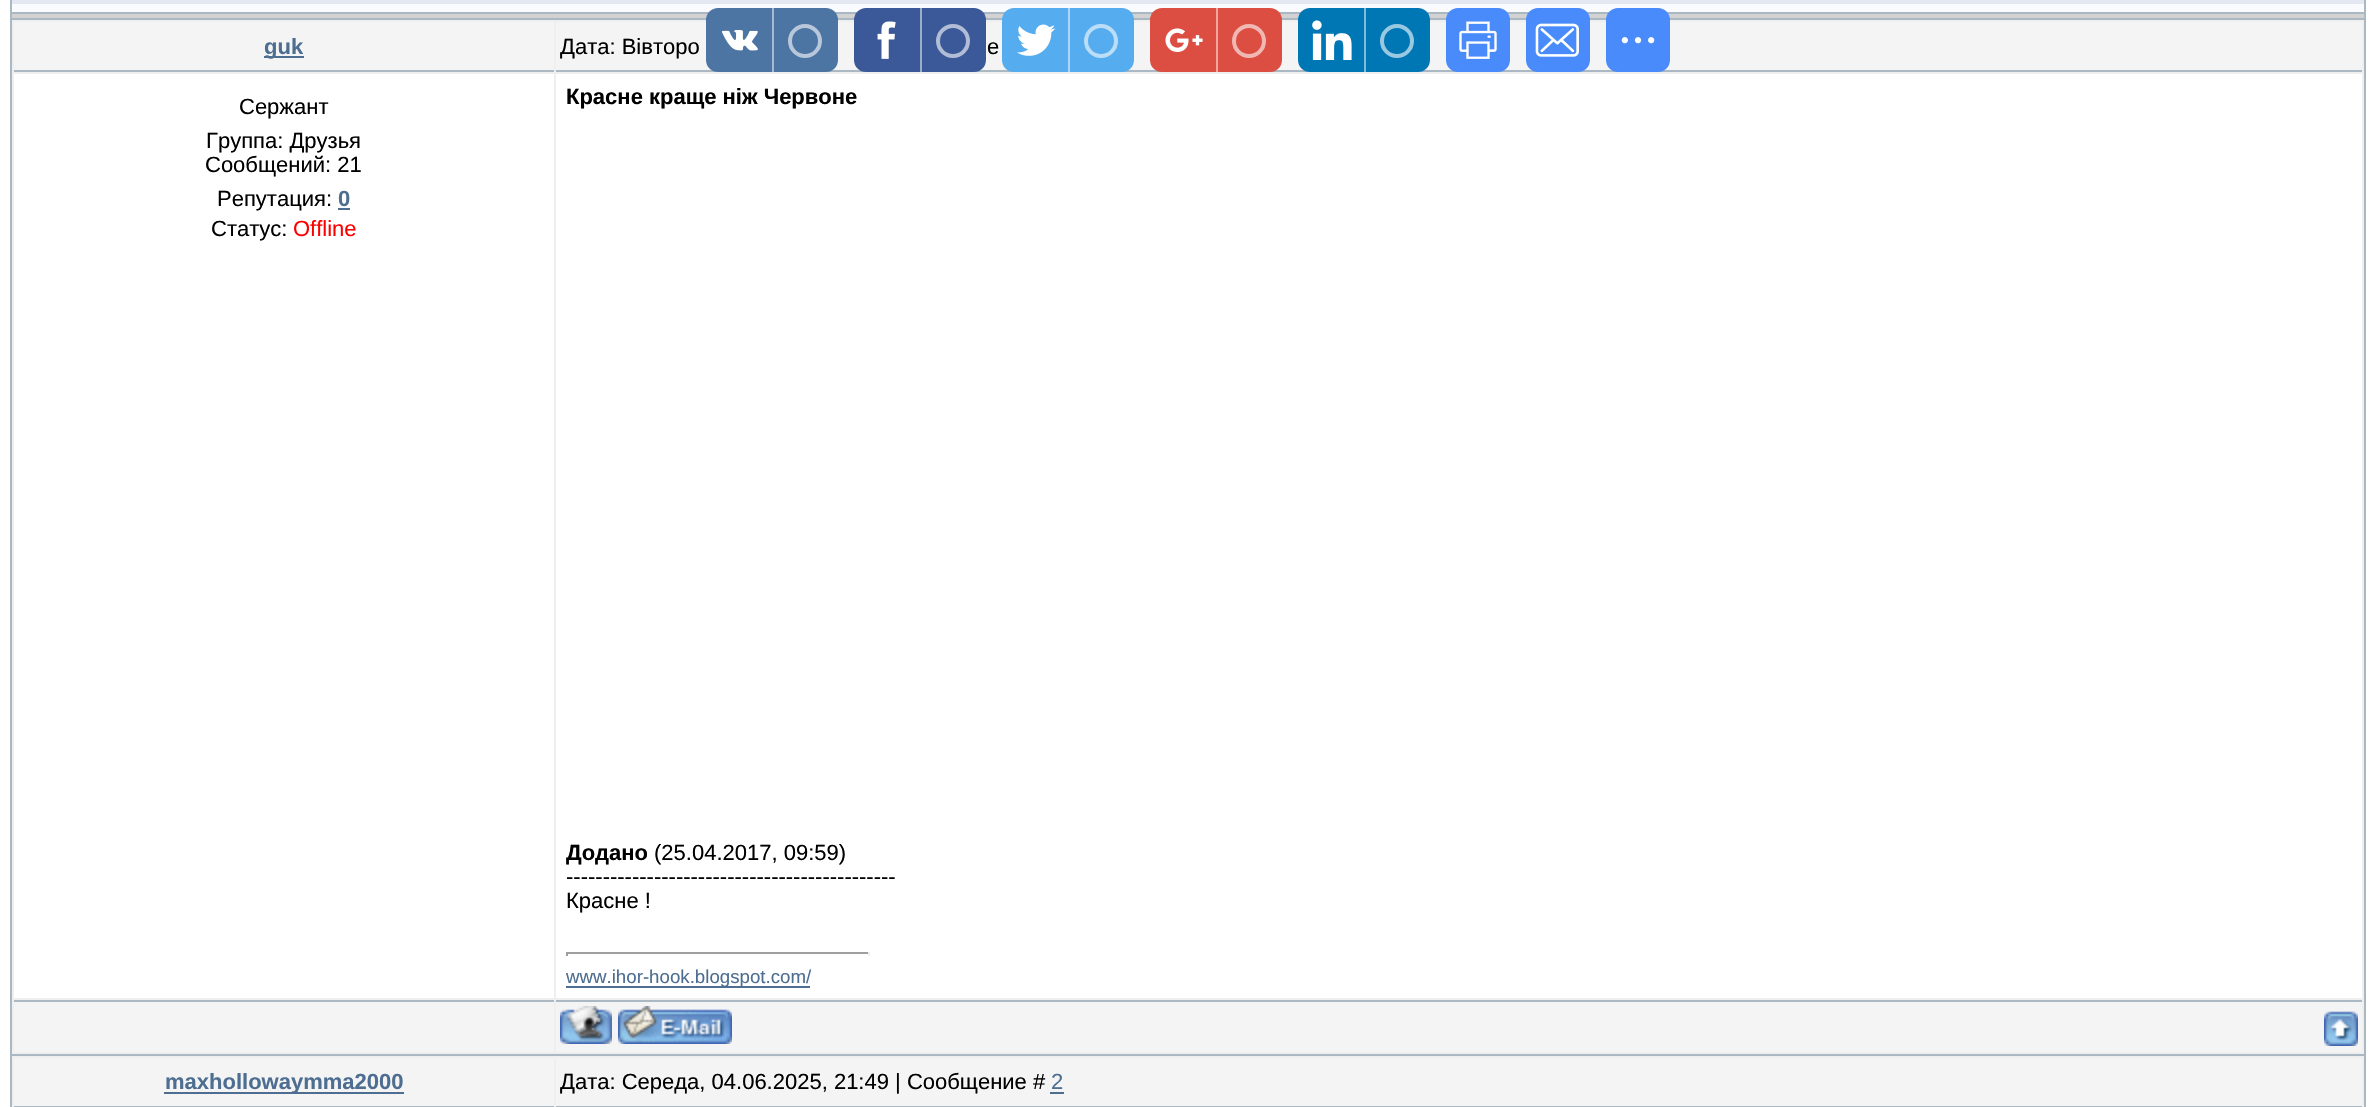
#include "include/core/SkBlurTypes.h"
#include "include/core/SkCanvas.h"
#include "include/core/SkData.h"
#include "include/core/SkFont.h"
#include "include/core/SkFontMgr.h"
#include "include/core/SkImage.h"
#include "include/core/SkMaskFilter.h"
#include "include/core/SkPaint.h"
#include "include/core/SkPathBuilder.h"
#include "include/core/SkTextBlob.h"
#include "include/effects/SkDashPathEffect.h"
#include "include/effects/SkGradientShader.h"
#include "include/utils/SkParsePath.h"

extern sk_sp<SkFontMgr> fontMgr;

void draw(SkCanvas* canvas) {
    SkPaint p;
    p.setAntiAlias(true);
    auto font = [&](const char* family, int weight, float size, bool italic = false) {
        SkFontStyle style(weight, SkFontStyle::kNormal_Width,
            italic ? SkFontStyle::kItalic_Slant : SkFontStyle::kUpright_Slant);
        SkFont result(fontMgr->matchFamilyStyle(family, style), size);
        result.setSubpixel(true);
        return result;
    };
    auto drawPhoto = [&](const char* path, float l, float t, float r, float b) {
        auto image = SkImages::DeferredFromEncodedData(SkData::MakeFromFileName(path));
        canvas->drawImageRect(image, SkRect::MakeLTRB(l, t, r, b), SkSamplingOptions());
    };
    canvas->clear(0xFFFFFFFF);
    {
        const struct { float l, t, r, b; SkColor color; } items[] = {
            {10, 0, 2366, 1107, 0xFFA9B8C2},
            {12, 0, 2364, 4, 0xFFE4E8F3},
            {12, 4, 2364, 12, 0xFFFAFBFE},
            {12, 14, 2364, 18, 0xFFD2D2D2},
            {12, 20, 2364, 1054, 0xFFEFEFEF},
            {14, 22, 554, 70, 0xFFF4F4F4},
            {14, 70, 554, 72, 0xFFA9B8C2},
            {264, 56, 304, 58, 0xFF4D6D91},
        };
        for (auto [l, t, r, b, color] : items) {
            p.setColor(color);
            canvas->drawRect(SkRect::MakeLTRB(l, t, r, b), p);
        }
    }
    auto font1 = font("Liberation Sans", 700, 22);
    canvas->drawString("guk", 264, 54, font1, p);
    p.setColor(0xFFF4F4F4);
    canvas->drawRect(SkRect::MakeLTRB(556, 22, 2362, 70), p);
    p.setColor(0xFFA9B8C2);
    canvas->drawRect(SkRect::MakeLTRB(556, 70, 2362, 72), p);
    auto font2 = font("Liberation Sans", 400, 22);
    p.setColor(0xFF000000);
    canvas->drawString("Дата: Вівторо", 560, 54, font2, p);
    canvas->drawString("е", 987, 54, font2, p);
    p.setColor(0xFFFFFFFF);
    canvas->drawRect(SkRect::MakeLTRB(14, 74, 554, 998), p);
    p.setColor(0xFF000000);
    {
        const struct { const char* s; float x, y; } items[] = {
            {"Сержант", 239, 114},
            {"Группа: Друзья", 206, 148},
            {"Сообщений: 21", 205, 172},
            {"Репутация:", 217, 206},
        };
        for (auto [s, x, y] : items) {
            canvas->drawString(s, x, y, font2, p);
        }
    }
    p.setColor(0xFF4D6D91);
    canvas->drawString("0", 338, 206, font1, p);
    canvas->drawRect(SkRect::MakeLTRB(338, 208, 350, 210), p);
    p.setColor(0xFF000000);
    canvas->drawString("Статус:", 211, 236, font2, p);
    p.setColor(0xFFFF0000);
    canvas->drawString("Offline", 293, 236, font2, p);
    p.setColor(0xFFFFFFFF);
    canvas->drawRect(SkRect::MakeLTRB(556, 74, 2362, 998), p);
    p.setColor(0xFF000000);
    canvas->drawString("Красне краще ніж Червоне", 566, 104, font1, p);
    canvas->drawString("Додано", 566, 860, font1, p);
    {
        const struct { const char* s; float x, y; } items[] = {
            {"(25.04.2017, 09:59)", 654, 860},
            {"---------------------------------------------", 566, 884},
            {"Красне !", 566, 908},
        };
        for (auto [s, x, y] : items) {
            canvas->drawString(s, x, y, font2, p);
        }
    }
    {
        const struct { float l, t, r, b; SkColor color; } items[] = {
            {566, 952, 870, 954, 0xFF9F9F9F},
            {868, 952, 870, 956, 0xFFEEEEEE},
            {566, 952, 568, 956, 0xFF9F9F9F},
            {566, 986, 810, 988, 0xFF4D6D91},
        };
        for (auto [l, t, r, b, color] : items) {
            p.setColor(color);
            canvas->drawRect(SkRect::MakeLTRB(l, t, r, b), p);
        }
    }
    auto font3 = font("Liberation Sans", 400, 18.7f);
    canvas->drawString("www.ihor-hook.blogspot.com/", 566, 983, font3, p);
    {
        const struct { float l, t, r, b; SkColor color; } items[] = {
            {14, 1002, 554, 1052, 0xFFF4F4F4},
            {14, 1000, 554, 1002, 0xFFA9B8C2},
            {556, 1002, 2362, 1052, 0xFFF4F4F4},
            {556, 1000, 2362, 1002, 0xFFA9B8C2},
        };
        for (auto [l, t, r, b, color] : items) {
            p.setColor(color);
            canvas->drawRect(SkRect::MakeLTRB(l, t, r, b), p);
        }
    }
    drawPhoto("media/1.png", 560, 1006, 612, 1044);
    drawPhoto("media/2.png", 618, 1006, 732, 1044);
    drawPhoto("media/3.png", 2324, 1011, 2358, 1046);
    {
        const struct { float l, t, r, b; SkColor color; } items[] = {
            {12, 1056, 2364, 1107, 0xFFEFEFEF},
            {14, 1058, 554, 1106, 0xFFF4F4F4},
            {14, 1106, 554, 1107, 0xFFA9B8C2},
            {164, 1092, 404, 1094, 0xFF4D6D91},
        };
        for (auto [l, t, r, b, color] : items) {
            p.setColor(color);
            canvas->drawRect(SkRect::MakeLTRB(l, t, r, b), p);
        }
    }
    canvas->drawString("maxhollowaymma2000", 165, 1089, font1, p);
    p.setColor(0xFFF4F4F4);
    canvas->drawRect(SkRect::MakeLTRB(556, 1058, 2362, 1106), p);
    p.setColor(0xFFA9B8C2);
    canvas->drawRect(SkRect::MakeLTRB(556, 1106, 2362, 1107), p);
    p.setColor(0xFF000000);
    canvas->drawString("Дата: Середа, 04.06.2025, 21:49 | Сообщение #", 560, 1089, font2, p);
    p.setColor(0xFF4D6D91);
    canvas->drawString("2", 1051, 1089, font2, p);
    canvas->drawRect(SkRect::MakeLTRB(1050, 1092, 1064, 1094), p);
    p.setColor(0xFF4D75A3);
    canvas->drawRoundRect(SkRect::MakeLTRB(706, 8, 838, 72), 12, 12, p);
    drawPhoto("media/4.png", 721, 30, 758, 51);
    p.setColor(0xFFA6BAD1);
    canvas->drawRect(SkRect::MakeLTRB(772, 8, 774, 72), p);
    p.setStyle(SkPaint::kStroke_Style);
    p.setStrokeWidth(4);
    p.setColor(0xFFB8C8DA);
    canvas->drawCircle(805, 41, 15, p);
    p.setStyle(SkPaint::kFill_Style);
    p.setColor(0xFF3B5998);
    canvas->drawRoundRect(SkRect::MakeLTRB(854, 8, 986, 72), 12, 12, p);
    drawPhoto("media/5.png", 877, 21, 896, 59);
    p.setColor(0xFF9DACCC);
    canvas->drawRect(SkRect::MakeLTRB(920, 8, 922, 72), p);
    p.setStyle(SkPaint::kStroke_Style);
    p.setColor(0xFFB1BDD6);
    canvas->drawCircle(953, 41, 15, p);
    p.setStyle(SkPaint::kFill_Style);
    p.setColor(0xFF55ACEE);
    canvas->drawRoundRect(SkRect::MakeLTRB(1002, 8, 1134, 72), 12, 12, p);
    drawPhoto("media/6.png", 1017, 24, 1056, 56);
    p.setColor(0xFFAAD6F7);
    canvas->drawRect(SkRect::MakeLTRB(1068, 8, 1070, 72), p);
    p.setStyle(SkPaint::kStroke_Style);
    p.setColor(0xFFBBDEF8);
    canvas->drawCircle(1101, 41, 15, p);
    p.setStyle(SkPaint::kFill_Style);
    p.setColor(0xFFDC4E41);
    canvas->drawRoundRect(SkRect::MakeLTRB(1150, 8, 1282, 72), 12, 12, p);
    drawPhoto("media/7.png", 1165, 28, 1203, 52);
    p.setColor(0xFFEEA7A0);
    canvas->drawRect(SkRect::MakeLTRB(1216, 8, 1218, 72), p);
    p.setStyle(SkPaint::kStroke_Style);
    p.setColor(0xFFF1B8B3);
    canvas->drawCircle(1249, 41, 15, p);
    p.setStyle(SkPaint::kFill_Style);
    p.setColor(0xFF0077B5);
    canvas->drawRoundRect(SkRect::MakeLTRB(1298, 8, 1430, 72), 12, 12, p);
    drawPhoto("media/8.png", 1312, 20, 1352, 60);
    p.setColor(0xFF80BBDA);
    canvas->drawRect(SkRect::MakeLTRB(1364, 8, 1366, 72), p);
    p.setStyle(SkPaint::kStroke_Style);
    p.setColor(0xFF99C9E1);
    canvas->drawCircle(1397, 41, 15, p);
    p.setStyle(SkPaint::kFill_Style);
    p.setColor(0xFF498BFA);
    canvas->drawRoundRect(SkRect::MakeLTRB(1446, 8, 1510, 72), 12, 12, p);
    drawPhoto("media/9.png", 1459, 21, 1497, 59);
    canvas->drawRoundRect(SkRect::MakeLTRB(1526, 8, 1590, 72), 12, 12, p);
    drawPhoto("media/10.png", 1535, 23, 1579, 57);
    canvas->drawRoundRect(SkRect::MakeLTRB(1606, 8, 1670, 72), 12, 12, p);
    drawPhoto("media/11.png", 1621, 37, 1655, 44);
}
